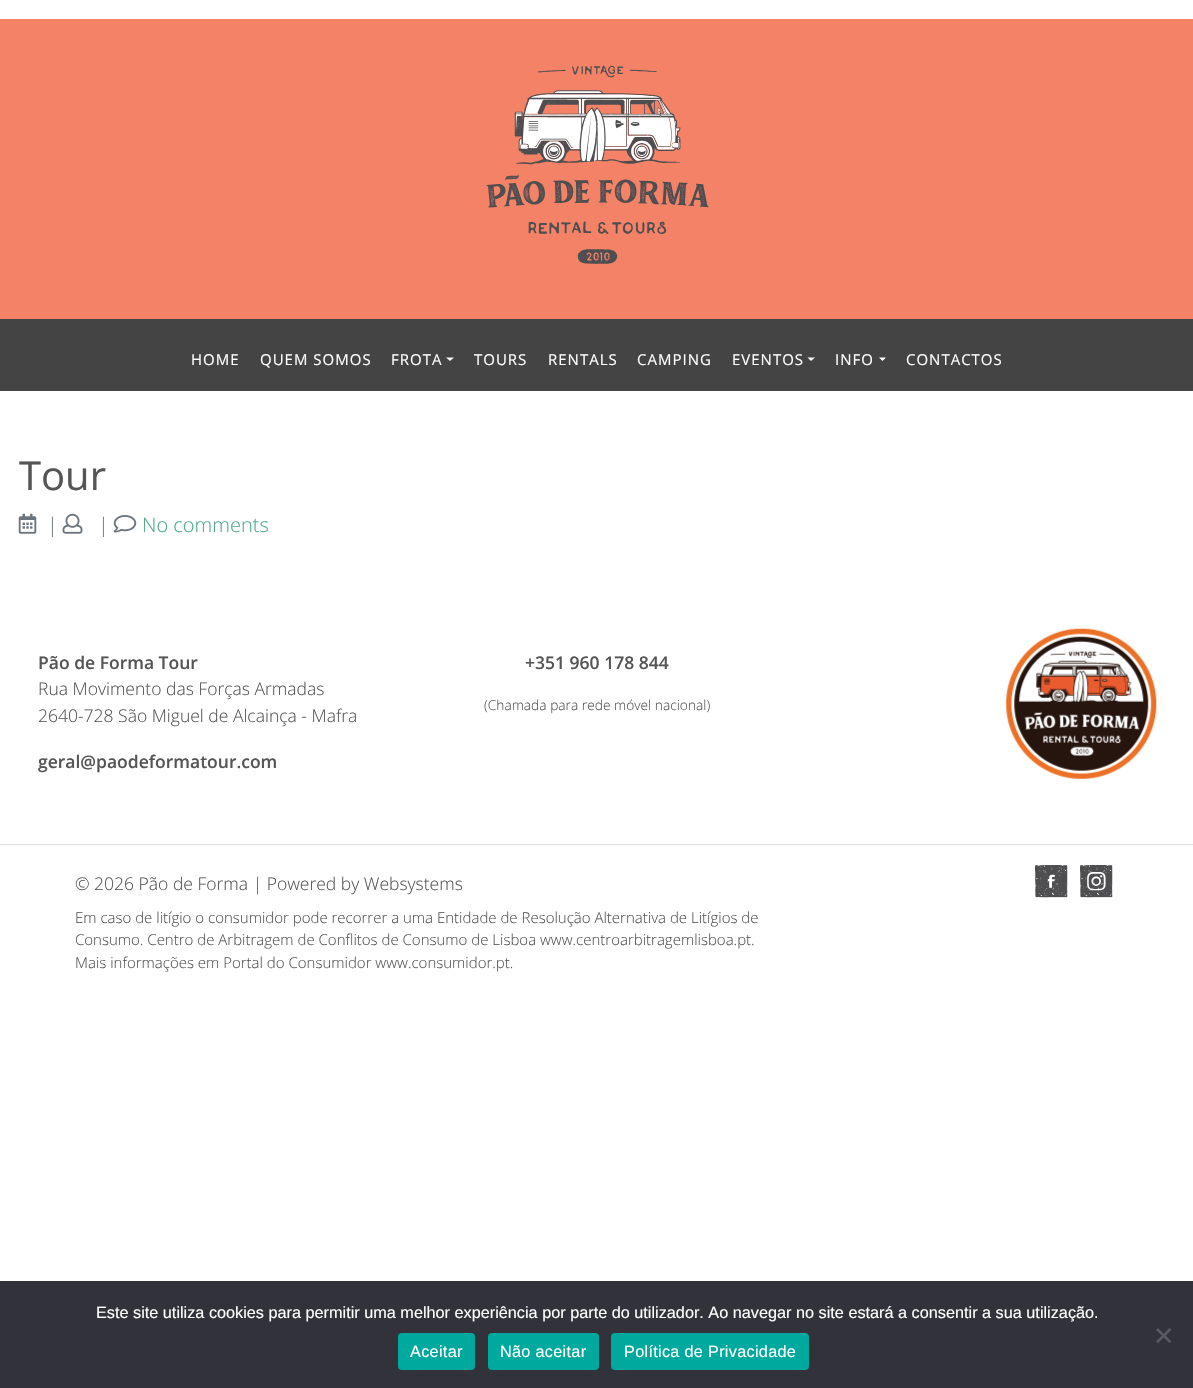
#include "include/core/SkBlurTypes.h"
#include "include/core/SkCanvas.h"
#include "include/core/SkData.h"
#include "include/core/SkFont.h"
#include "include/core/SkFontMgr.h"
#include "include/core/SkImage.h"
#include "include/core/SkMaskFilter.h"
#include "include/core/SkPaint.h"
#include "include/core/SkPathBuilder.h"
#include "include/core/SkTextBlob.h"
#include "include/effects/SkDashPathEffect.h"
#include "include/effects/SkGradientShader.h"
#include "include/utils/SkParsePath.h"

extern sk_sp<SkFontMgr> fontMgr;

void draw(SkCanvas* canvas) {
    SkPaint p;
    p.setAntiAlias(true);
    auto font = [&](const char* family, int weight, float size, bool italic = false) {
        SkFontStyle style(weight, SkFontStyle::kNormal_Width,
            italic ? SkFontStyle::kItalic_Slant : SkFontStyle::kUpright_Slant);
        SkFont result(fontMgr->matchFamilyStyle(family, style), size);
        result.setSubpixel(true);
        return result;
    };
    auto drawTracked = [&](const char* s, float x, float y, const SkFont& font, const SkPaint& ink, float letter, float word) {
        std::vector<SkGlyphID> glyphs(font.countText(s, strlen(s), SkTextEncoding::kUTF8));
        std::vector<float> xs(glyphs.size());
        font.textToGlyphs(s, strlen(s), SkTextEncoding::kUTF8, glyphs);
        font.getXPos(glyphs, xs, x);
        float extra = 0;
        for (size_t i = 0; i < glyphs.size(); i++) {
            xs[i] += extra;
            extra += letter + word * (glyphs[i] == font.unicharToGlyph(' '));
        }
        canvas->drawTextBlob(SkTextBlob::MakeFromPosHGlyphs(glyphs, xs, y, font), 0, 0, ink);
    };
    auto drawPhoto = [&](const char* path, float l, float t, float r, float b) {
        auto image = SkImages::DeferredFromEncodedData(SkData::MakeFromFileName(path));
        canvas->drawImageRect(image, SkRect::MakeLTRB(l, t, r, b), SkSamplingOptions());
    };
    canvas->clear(0xFFFFFFFF);
    p.setColor(0xFFF48267);
    canvas->drawRect(SkRect::MakeLTRB(0, 19, 1193, 319), p);
    drawPhoto("media/1.png", 486, 65, 709, 264);
    p.setColor(0xFF444444);
    canvas->drawRect(SkRect::MakeLTRB(0, 319, 1193, 391), p);
    auto font1 = font("Open Sans", 400, 15);
    p.setColor(0xFFFFFFFF);
    {
        const struct { const char* s; float x, y; } items[] = {
            {"HOME", 191, 365},
            {"QUEM SOMOS", 260, 365},
            {"FROTA", 391, 365},
        };
        for (auto [s, x, y] : items) {
            drawTracked(s, x, y, font1, p, 1, 0);
        }
    }
    canvas->drawPath(SkPathBuilder().moveTo(446, 357.5f).lineTo(454, 357.5f).lineTo(450, 361).close().detach(), p);
    {
        const struct { const char* s; float x, y; } items[] = {
            {"TOURS", 474, 365},
            {"RENTALS", 548, 365},
            {"CAMPING", 637, 365},
            {"EVENTOS", 732, 365},
        };
        for (auto [s, x, y] : items) {
            drawTracked(s, x, y, font1, p, 1, 0);
        }
    }
    canvas->drawPath(SkPathBuilder().moveTo(807.5f, 357.5f).lineTo(815, 357.5f).lineTo(811, 361).close().detach(), p);
    drawTracked("INFO", 835, 365, font1, p, 1, 0);
    canvas->drawPath(SkPathBuilder().moveTo(879, 357.5f).lineTo(886, 357.5f).lineTo(882.5f, 361).close().detach(), p);
    drawTracked("CONTACTOS", 906, 365, font1, p, 1, 0);
    auto font2 = font("Open Sans", 400, 40);
    p.setColor(0xFF555555);
    canvas->drawString("Tour", 19, 490, font2, p);
    drawPhoto("media/2.png", 18, 513, 37, 534);
    auto font3 = font("Open Sans", 300, 20);
    p.setColor(0xFF6C757D);
    canvas->drawString("|", 47, 532, font3, p);
    drawPhoto("media/3.png", 62, 513, 83, 534);
    canvas->drawString("|", 98, 532, font3, p);
    drawPhoto("media/4.png", 113, 515, 137, 533);
    p.setColor(0xFF4FA98C);
    canvas->drawString("No comments", 142, 532, font3, p);
    p.setColor(0xFFDEE2E6);
    canvas->drawRect(SkRect::MakeLTRB(0, 844, 1193, 845), p);
    auto font4 = font("Open Sans", 600, 17.5f);
    p.setColor(0xFF555555);
    canvas->drawString("Pão de Forma Tour", 38, 669, font4, p);
    auto font5 = font("Open Sans", 300, 17.5f);
    canvas->drawString("Rua Movimento das Forças Armadas", 38, 695, font5, p);
    canvas->drawString("2640-728 São Miguel de Alcainça - Mafra", 38, 722, font5, p);
    canvas->drawString("geral@paodeformatour.com", 38, 768, font4, p);
    canvas->drawString("+351 960 178 844", 525, 669, font4, p);
    auto font6 = font("Open Sans", 300, 13.75f);
    canvas->drawString("(Chamada para rede móvel nacional)", 484, 710, font6, p);
    drawPhoto("media/5.png", 1006, 628, 1157, 779);
    canvas->drawString("© 2026 Pão de Forma | Powered by Websystems", 75, 890, font5, p);
    auto font7 = font("Open Sans", 300, 15);
    {
        const struct { const char* s; float x, y; } items[] = {
            {"Em caso de litígio o consumidor pode recorrer a uma Entidade de Resolução Alternativa de Litígios de", 75, 923},
            {"Consumo. Centro de Arbitragem de Conflitos de Consumo de Lisboa www.centroarbitragemlisboa.pt.", 75, 945},
            {"Mais informações em Portal do Consumidor www.consumidor.pt.", 75, 968},
        };
        for (auto [s, x, y] : items) {
            canvas->drawString(s, x, y, font7, p);
        }
    }
    drawPhoto("media/6.png", 1035, 865, 1068, 898);
    drawPhoto("media/7.png", 1080, 865, 1113, 898);
    p.setColor(0xFF32323A);
    canvas->drawRect(SkRect::MakeLTRB(0, 1281, 1193, 1388), p);
    auto font8 = font("Liberation Sans", 400, 16.25f);
    p.setColor(0xFFFFFFFF);
    canvas->drawString("Este site utiliza cookies para permitir uma melhor experiência por parte do utilizador. Ao navegar no site estará a consentir a sua utilização.", 96, 1318, font8, p);
    p.setColor(0xFF59595D);
    canvas->drawPath(SkPathBuilder().moveTo(1169.5f, 1328).lineTo(1171.5f, 1330).lineTo(1158, 1343).lineTo(1156, 1341.5f).close().detach(), p);
    canvas->drawPath(SkPathBuilder().moveTo(1156, 1330).lineTo(1158, 1328).lineTo(1171.5f, 1341.5f).lineTo(1169.5f, 1343).close().detach(), p);
    p.setColor(0xFF00A99D);
    canvas->drawRoundRect(SkRect::MakeLTRB(398, 1333, 475, 1370), 4, 4, p);
    p.setColor(0xFFFFFFFF);
    drawTracked("Aceitar", 410, 1357, font8, p, 0.3f, 0);
    p.setColor(0xFF00A99D);
    canvas->drawRoundRect(SkRect::MakeLTRB(488, 1333, 599, 1370), 4, 4, p);
    p.setColor(0xFFFFFFFF);
    drawTracked("Não aceitar", 500, 1357, font8, p, 0.3f, 0);
    p.setColor(0xFF00A99D);
    canvas->drawRoundRect(SkRect::MakeLTRB(611, 1333, 809, 1370), 4, 4, p);
    p.setColor(0xFFFFFFFF);
    drawTracked("Política de Privacidade", 624, 1357, font8, p, 0.3f, 0);
}
